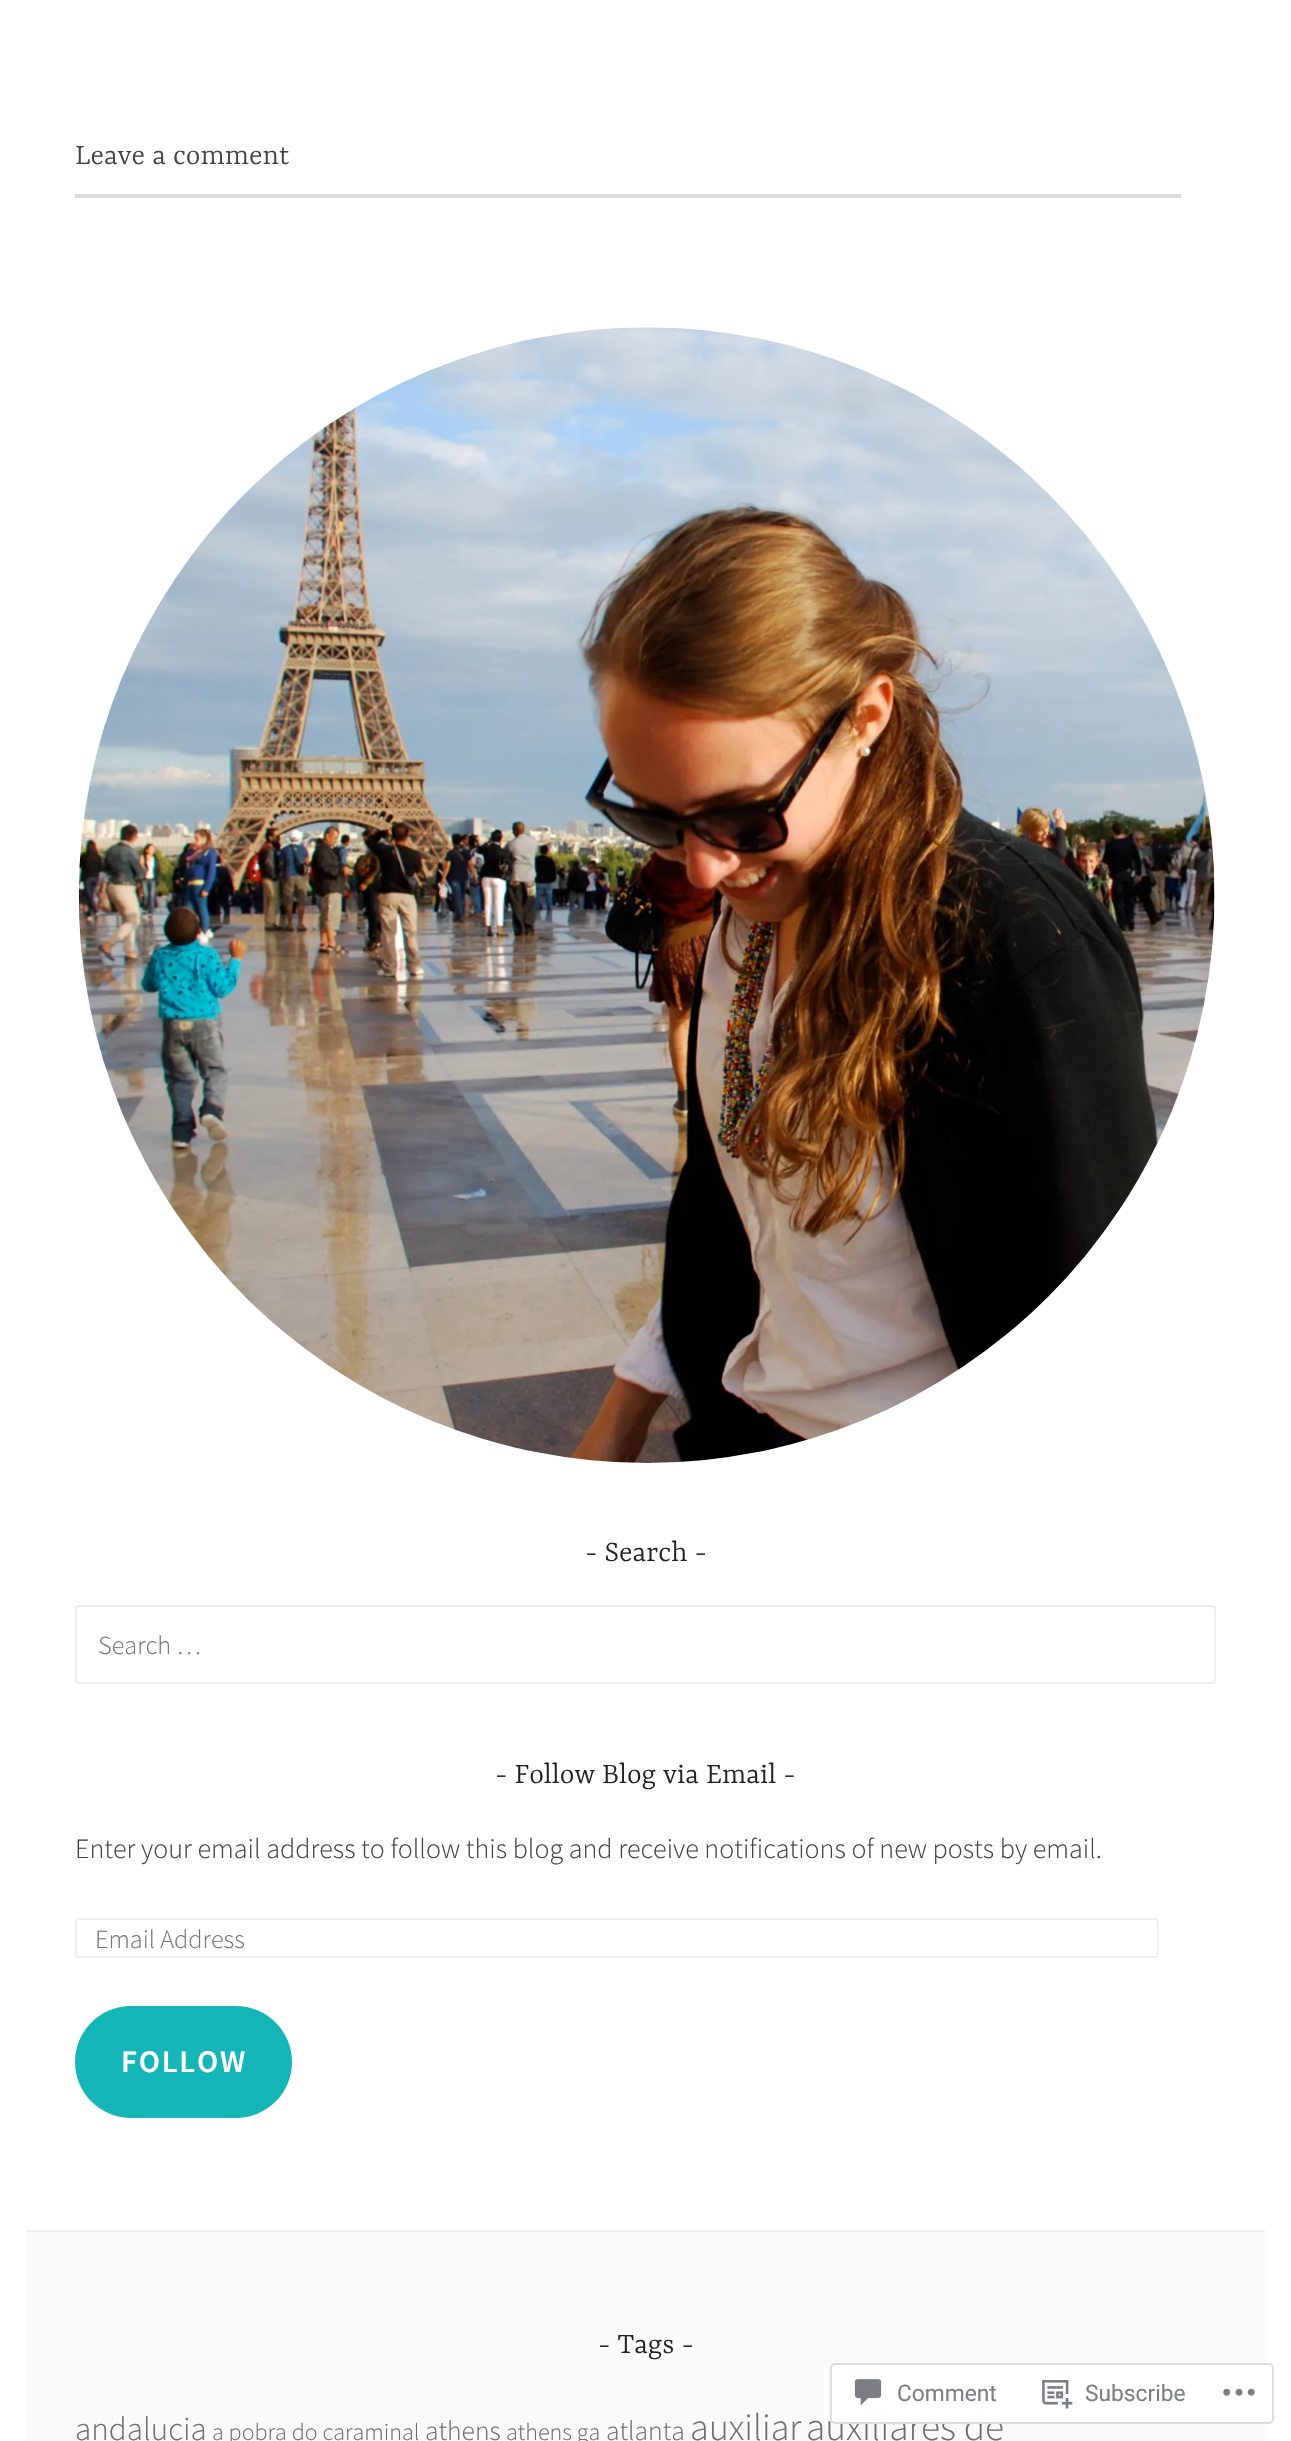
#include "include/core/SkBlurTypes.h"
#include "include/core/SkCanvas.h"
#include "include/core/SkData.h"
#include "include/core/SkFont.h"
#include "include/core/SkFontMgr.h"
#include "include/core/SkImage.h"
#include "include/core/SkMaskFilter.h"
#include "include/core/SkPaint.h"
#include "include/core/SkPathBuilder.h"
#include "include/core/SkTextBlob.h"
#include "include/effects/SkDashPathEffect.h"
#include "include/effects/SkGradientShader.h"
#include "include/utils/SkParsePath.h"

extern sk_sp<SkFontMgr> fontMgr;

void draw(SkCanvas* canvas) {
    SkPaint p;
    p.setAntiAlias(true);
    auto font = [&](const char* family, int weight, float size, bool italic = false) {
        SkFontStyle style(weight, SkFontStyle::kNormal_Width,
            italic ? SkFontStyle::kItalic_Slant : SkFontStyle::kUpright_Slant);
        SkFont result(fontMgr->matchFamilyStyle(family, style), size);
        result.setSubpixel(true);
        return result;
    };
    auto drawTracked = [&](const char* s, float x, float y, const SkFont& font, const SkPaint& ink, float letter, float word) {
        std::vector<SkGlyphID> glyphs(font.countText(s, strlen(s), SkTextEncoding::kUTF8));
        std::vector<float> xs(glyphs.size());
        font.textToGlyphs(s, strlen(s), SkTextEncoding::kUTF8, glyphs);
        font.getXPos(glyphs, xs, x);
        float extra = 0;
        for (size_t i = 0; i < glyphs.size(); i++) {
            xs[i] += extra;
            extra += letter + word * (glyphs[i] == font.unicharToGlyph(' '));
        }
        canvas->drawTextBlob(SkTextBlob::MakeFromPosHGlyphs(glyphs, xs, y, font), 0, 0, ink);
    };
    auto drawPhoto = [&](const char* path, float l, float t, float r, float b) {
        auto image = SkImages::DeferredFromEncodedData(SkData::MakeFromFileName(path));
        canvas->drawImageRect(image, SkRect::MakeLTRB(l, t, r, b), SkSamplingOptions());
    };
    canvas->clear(0xFFFFFFFF);
    auto font1 = font("Yrsa", 300, 31.5f);
    p.setColor(0xFF444340);
    canvas->drawString("Leave a comment", 75, 164, font1, p);
    p.setColor(0xFFDCDCDE);
    canvas->drawRect(SkRect::MakeLTRB(75, 194, 1181, 198), p);
    drawPhoto("media/1.png", 78, 327, 1215, 1463);
    p.setColor(0xFF222222);
    canvas->drawString("- Search -", 585, 1561, font1, p);
    p.setStyle(SkPaint::kStroke_Style);
    p.setStrokeWidth(2);
    p.setColor(0xFFEEEEEE);
    canvas->drawRoundRect(SkRect::MakeLTRB(76, 1606, 1215, 1683), 3, 3, p);
    auto font2 = font("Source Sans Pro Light", 300, 26.25f);
    p.setStyle(SkPaint::kFill_Style);
    p.setColor(0xFF757575);
    canvas->drawString("Search …", 98, 1654, font2, p);
    p.setColor(0xFF222222);
    canvas->drawString("- Follow Blog via Email -", 495, 1783, font1, p);
    auto font3 = font("Source Sans Pro Light", 300, 28);
    p.setColor(0xFF444340);
    canvas->drawString("Enter your email address to follow this blog and receive notifications of new posts by email.", 75, 1858, font3, p);
    p.setStyle(SkPaint::kStroke_Style);
    p.setColor(0xFFEEEEEE);
    canvas->drawRoundRect(SkRect::MakeLTRB(76, 1919, 1158, 1957), 3, 3, p);
    p.setStyle(SkPaint::kFill_Style);
    p.setColor(0xFF757575);
    canvas->drawString("Email Address", 95, 1948, font2, p);
    p.setColor(0xFF15B6B8);
    canvas->drawRoundRect(SkRect::MakeLTRB(75, 2006, 292, 2118), 56, 56, p);
    auto font4 = font("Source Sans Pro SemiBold", 600, 31.5f);
    p.setColor(0xFFFFFFFF);
    drawTracked("FOLLOW", 121, 2072, font4, p, 1.75f, 0);
    p.setColor(0xFFFAFAFA);
    canvas->drawRect(SkRect::MakeLTRB(26, 2232, 1265, 2441), p);
    p.setColor(0xFFEEEEEE);
    canvas->drawRect(SkRect::MakeLTRB(26, 2230, 1265, 2232), p);
    p.setColor(0xFF222222);
    canvas->drawString("- Tags -", 598, 2353, font1, p);
    auto font5 = font("Source Sans Pro Light", 300, 33);
    p.setColor(0xFF6D6D6D);
    canvas->drawString("andalucia", 75, 2440, font5, p);
    auto font6 = font("Source Sans Pro Light", 300, 24);
    canvas->drawString("a pobra do caraminal", 212, 2440, font6, p);
    auto font7 = font("Source Sans Pro Light", 300, 27.5f);
    canvas->drawString("athens", 425, 2440, font7, p);
    canvas->drawString("athens ga", 506, 2440, font6, p);
    canvas->drawString("atlanta", 606, 2440, font7, p);
    auto font8 = font("Source Sans Pro Light", 300, 38);
    canvas->drawString("auxiliar", 690, 2440, font8, p);
    auto font9 = font("Source Sans Pro Light", 300, 39.25f);
    canvas->drawString("auxiliares de", 806, 2440, font9, p);
    p.setColor(0xFAFFFFFF);
    canvas->drawRoundRect(SkRect::MakeLTRB(830, 2363, 1274, 2424), 5, 5, p);
    p.setStyle(SkPaint::kStroke_Style);
    p.setColor(0xFADCDCDE);
    canvas->drawRoundRect(SkRect::MakeLTRB(831, 2364, 1273, 2423), 4, 4, p);
    drawPhoto("media/2.png", 854, 2379, 882, 2406);
    auto font10 = font("Roboto", 400, 22.75f);
    p.setStyle(SkPaint::kFill_Style);
    p.setColor(0xFF7B7F84);
    canvas->drawString("Comment", 897, 2401, font10, p);
    drawPhoto("media/3.png", 1042, 2380, 1073, 2409);
    canvas->drawString("Subscribe", 1085, 2401, font10, p);
    drawPhoto("media/4.png", 1223, 2388, 1255, 2396);
}
